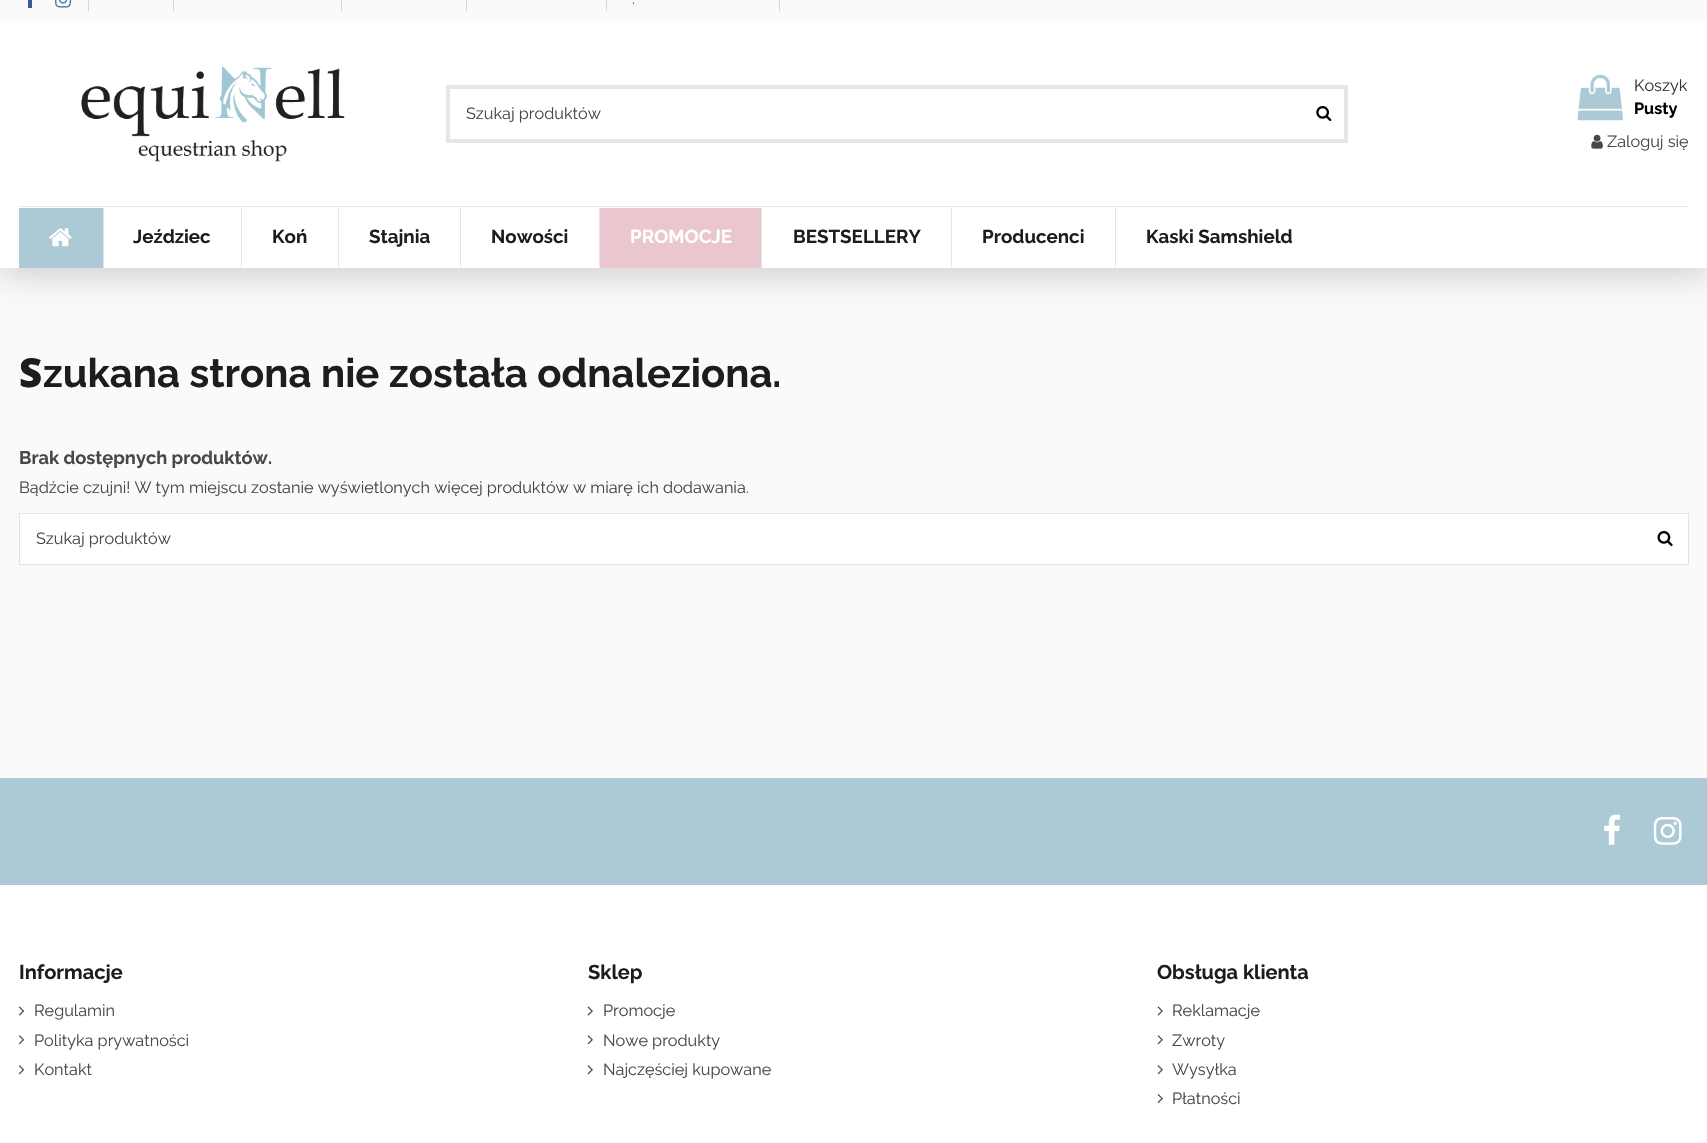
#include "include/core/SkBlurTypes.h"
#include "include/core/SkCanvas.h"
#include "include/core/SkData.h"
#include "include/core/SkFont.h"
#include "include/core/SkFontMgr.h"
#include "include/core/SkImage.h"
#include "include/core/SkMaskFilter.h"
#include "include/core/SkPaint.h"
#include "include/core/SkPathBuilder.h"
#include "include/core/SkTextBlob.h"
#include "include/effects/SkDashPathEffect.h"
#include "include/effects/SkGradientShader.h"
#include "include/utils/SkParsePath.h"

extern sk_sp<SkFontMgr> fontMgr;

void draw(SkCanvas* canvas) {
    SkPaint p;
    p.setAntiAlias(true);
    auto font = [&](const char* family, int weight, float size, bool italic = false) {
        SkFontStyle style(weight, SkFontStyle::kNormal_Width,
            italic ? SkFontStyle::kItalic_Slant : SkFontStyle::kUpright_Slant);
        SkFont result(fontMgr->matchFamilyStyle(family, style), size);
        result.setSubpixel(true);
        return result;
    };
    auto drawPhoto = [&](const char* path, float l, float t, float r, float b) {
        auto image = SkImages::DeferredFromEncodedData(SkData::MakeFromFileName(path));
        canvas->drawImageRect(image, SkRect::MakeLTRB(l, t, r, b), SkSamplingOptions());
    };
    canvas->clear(0xFFFAFAFA);
    p.setColor(0x2E000000);
    p.setMaskFilter(SkMaskFilter::MakeBlur(kNormal_SkBlurStyle, 15.5f));
    canvas->drawRect(SkRect::MakeLTRB(0, -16, 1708, 274), p);
    p.setMaskFilter(nullptr);
    {
        const struct { float l, t, r, b; SkColor color; } items[] = {
            {0, 21, 1707, 268, 0xFFFFFFFF},
            {0, 0, 1707, 21, 0xFFFAFAFA},
            {28, 0, 32, 8, 0xFF3B5998},
        };
        for (auto [l, t, r, b, color] : items) {
            p.setColor(color);
            canvas->drawRect(SkRect::MakeLTRB(l, t, r, b), p);
        }
    }
    drawPhoto("media/1.png", 55, 0, 72, 8);
    {
        const struct { float l, t, r, b; SkColor color; } items[] = {
            {88, 0, 89, 11, 0xFFD6D6D6},
            {173, 0, 174, 11, 0xFFD6D6D6},
            {341, 0, 342, 11, 0xFFD6D6D6},
            {466, 0, 467, 11, 0xFFD6D6D6},
            {606, 0, 607, 11, 0xFFD6D6D6},
        };
        for (auto [l, t, r, b, color] : items) {
            p.setColor(color);
            canvas->drawRect(SkRect::MakeLTRB(l, t, r, b), p);
        }
    }
    auto font1 = font("Raleway", 400, 15);
    p.setColor(0xFF484848);
    canvas->drawString(".", 632, 4, font1, p);
    p.setColor(0xFFD6D6D6);
    canvas->drawRect(SkRect::MakeLTRB(779, 0, 780, 11), p);
    drawPhoto("media/2.png", 81, 66, 345, 162);
    p.setStyle(SkPaint::kStroke_Style);
    p.setStrokeWidth(4);
    p.setColor(0xFFE6E6E6);
    canvas->drawRect(SkRect::MakeLTRB(448, 87, 1346, 141), p);
    auto font2 = font("Raleway", 400, 16.25f);
    p.setStyle(SkPaint::kFill_Style);
    p.setColor(0xFF484848);
    canvas->drawString("Szukaj produktów", 466, 119, font2, p);
    drawPhoto("media/3.png", 1316, 106, 1332, 122);
    drawPhoto("media/4.png", 1577, 74, 1623, 121);
    p.setColor(0xFF333333);
    canvas->drawString("Koszyk", 1634, 91, font2, p);
    auto font3 = font("Raleway", 700, 16.25f);
    p.setColor(0xFF000000);
    canvas->drawString("Pusty", 1634, 114, font3, p);
    drawPhoto("media/5.png", 1591, 134, 1603, 149);
    p.setColor(0xFF484848);
    canvas->drawString("Zaloguj się", 1607, 147, font2, p);
    p.setColor(0xFFE6E6E6);
    canvas->drawRect(SkRect::MakeLTRB(19, 206, 1689, 207), p);
    p.setColor(0xFFACCAD5);
    canvas->drawRect(SkRect::MakeLTRB(19, 208, 103, 268), p);
    drawPhoto("media/6.png", 49, 228, 72, 247);
    p.setColor(0xFFE6E6E6);
    canvas->drawRect(SkRect::MakeLTRB(103, 208, 104, 268), p);
    auto font4 = font("Raleway", 700, 18.75f);
    p.setColor(0xFF1D1D1D);
    canvas->drawString("Jeździec", 133, 243, font4, p);
    p.setColor(0xFFE6E6E6);
    canvas->drawRect(SkRect::MakeLTRB(241, 208, 242, 268), p);
    p.setColor(0xFF1D1D1D);
    canvas->drawString("Koń", 272, 243, font4, p);
    p.setColor(0xFFE6E6E6);
    canvas->drawRect(SkRect::MakeLTRB(338, 208, 339, 268), p);
    p.setColor(0xFF1D1D1D);
    canvas->drawString("Stajnia", 369, 243, font4, p);
    p.setColor(0xFFE6E6E6);
    canvas->drawRect(SkRect::MakeLTRB(460, 208, 461, 268), p);
    p.setColor(0xFF1D1D1D);
    canvas->drawString("Nowości", 491, 243, font4, p);
    p.setColor(0xFFEAC7CE);
    canvas->drawRect(SkRect::MakeLTRB(600, 208, 761, 268), p);
    p.setColor(0xFFE6E6E6);
    canvas->drawRect(SkRect::MakeLTRB(599, 208, 600, 268), p);
    p.setColor(0xFFFFFFFF);
    canvas->drawString("PROMOCJE", 630, 243, font4, p);
    p.setColor(0xFFE6E6E6);
    canvas->drawRect(SkRect::MakeLTRB(761, 208, 762, 268), p);
    p.setColor(0xFF1D1D1D);
    canvas->drawString("BESTSELLERY", 793, 243, font4, p);
    p.setColor(0xFFE6E6E6);
    canvas->drawRect(SkRect::MakeLTRB(951, 208, 952, 268), p);
    p.setColor(0xFF1D1D1D);
    canvas->drawString("Producenci", 982, 243, font4, p);
    p.setColor(0xFFE6E6E6);
    canvas->drawRect(SkRect::MakeLTRB(1115, 208, 1116, 268), p);
    p.setColor(0xFF1D1D1D);
    canvas->drawString("Kaski Samshield", 1146, 243, font4, p);
    auto font5 = font("Noto Sans", 900, 40);
    canvas->drawString("S", 19, 387, font5, p);
    auto font6 = font("Raleway", 700, 40);
    canvas->drawString("zukana strona nie została odnaleziona.", 43, 387, font6, p);
    auto font7 = font("Raleway", 700, 18.25f);
    p.setColor(0xFF484848);
    canvas->drawString("Brak dostępnych produktów.", 19, 464, font7, p);
    canvas->drawString("Bądźcie czujni! W tym miejscu zostanie wyświetlonych więcej produktów w miarę ich dodawania.", 19, 493, font2, p);
    p.setColor(0xFFFFFFFF);
    canvas->drawRect(SkRect::MakeLTRB(19.5f, 513.5f, 1688.5f, 564.5f), p);
    p.setStyle(SkPaint::kStroke_Style);
    p.setStrokeWidth(1);
    p.setColor(0xFFE3E3E3);
    canvas->drawRect(SkRect::MakeLTRB(19.5f, 513.5f, 1688.5f, 564.5f), p);
    p.setStyle(SkPaint::kFill_Style);
    p.setColor(0xFF484848);
    canvas->drawString("Szukaj produktów", 36, 544, font2, p);
    drawPhoto("media/7.png", 1657, 531, 1673, 547);
    p.setColor(0xFFFFFFFF);
    canvas->drawRect(SkRect::MakeLTRB(0, 885, 1707, 1143), p);
    p.setColor(0xFFACCAD5);
    canvas->drawRect(SkRect::MakeLTRB(0, 778, 1707, 885), p);
    drawPhoto("media/8.png", 1604, 814, 1620, 845);
    drawPhoto("media/9.png", 1653, 817, 1682, 845);
    auto font8 = font("Raleway", 700, 20);
    p.setColor(0xFF1D1D1D);
    canvas->drawString("Informacje", 19, 979, font8, p);
    drawPhoto("media/10.png", 18, 1006, 25, 1016);
    p.setColor(0xFF484848);
    canvas->drawString("Regulamin", 34, 1016, font2, p);
    drawPhoto("media/11.png", 18, 1035, 25, 1045);
    canvas->drawString("Polityka prywatności", 34, 1046, font2, p);
    drawPhoto("media/11.png", 18, 1065, 25, 1075);
    canvas->drawString("Kontakt", 34, 1075, font2, p);
    p.setColor(0xFF1D1D1D);
    canvas->drawString("Sklep", 588, 979, font8, p);
    drawPhoto("media/12.png", 587, 1006, 593, 1016);
    p.setColor(0xFF484848);
    canvas->drawString("Promocje", 603, 1016, font2, p);
    drawPhoto("media/13.png", 587, 1035, 593, 1045);
    canvas->drawString("Nowe produkty", 603, 1046, font2, p);
    drawPhoto("media/13.png", 587, 1065, 593, 1075);
    canvas->drawString("Najczęściej kupowane", 603, 1075, font2, p);
    p.setColor(0xFF1D1D1D);
    canvas->drawString("Obsługa klienta", 1157, 979, font8, p);
    drawPhoto("media/12.png", 1157, 1006, 1163, 1016);
    p.setColor(0xFF484848);
    canvas->drawString("Reklamacje", 1172, 1016, font2, p);
    drawPhoto("media/13.png", 1157, 1035, 1163, 1045);
    canvas->drawString("Zwroty", 1172, 1046, font2, p);
    drawPhoto("media/13.png", 1157, 1065, 1163, 1075);
    canvas->drawString("Wysyłka", 1172, 1075, font2, p);
    drawPhoto("media/14.png", 1157, 1094, 1163, 1103);
    canvas->drawString("Płatności", 1172, 1104, font2, p);
}
